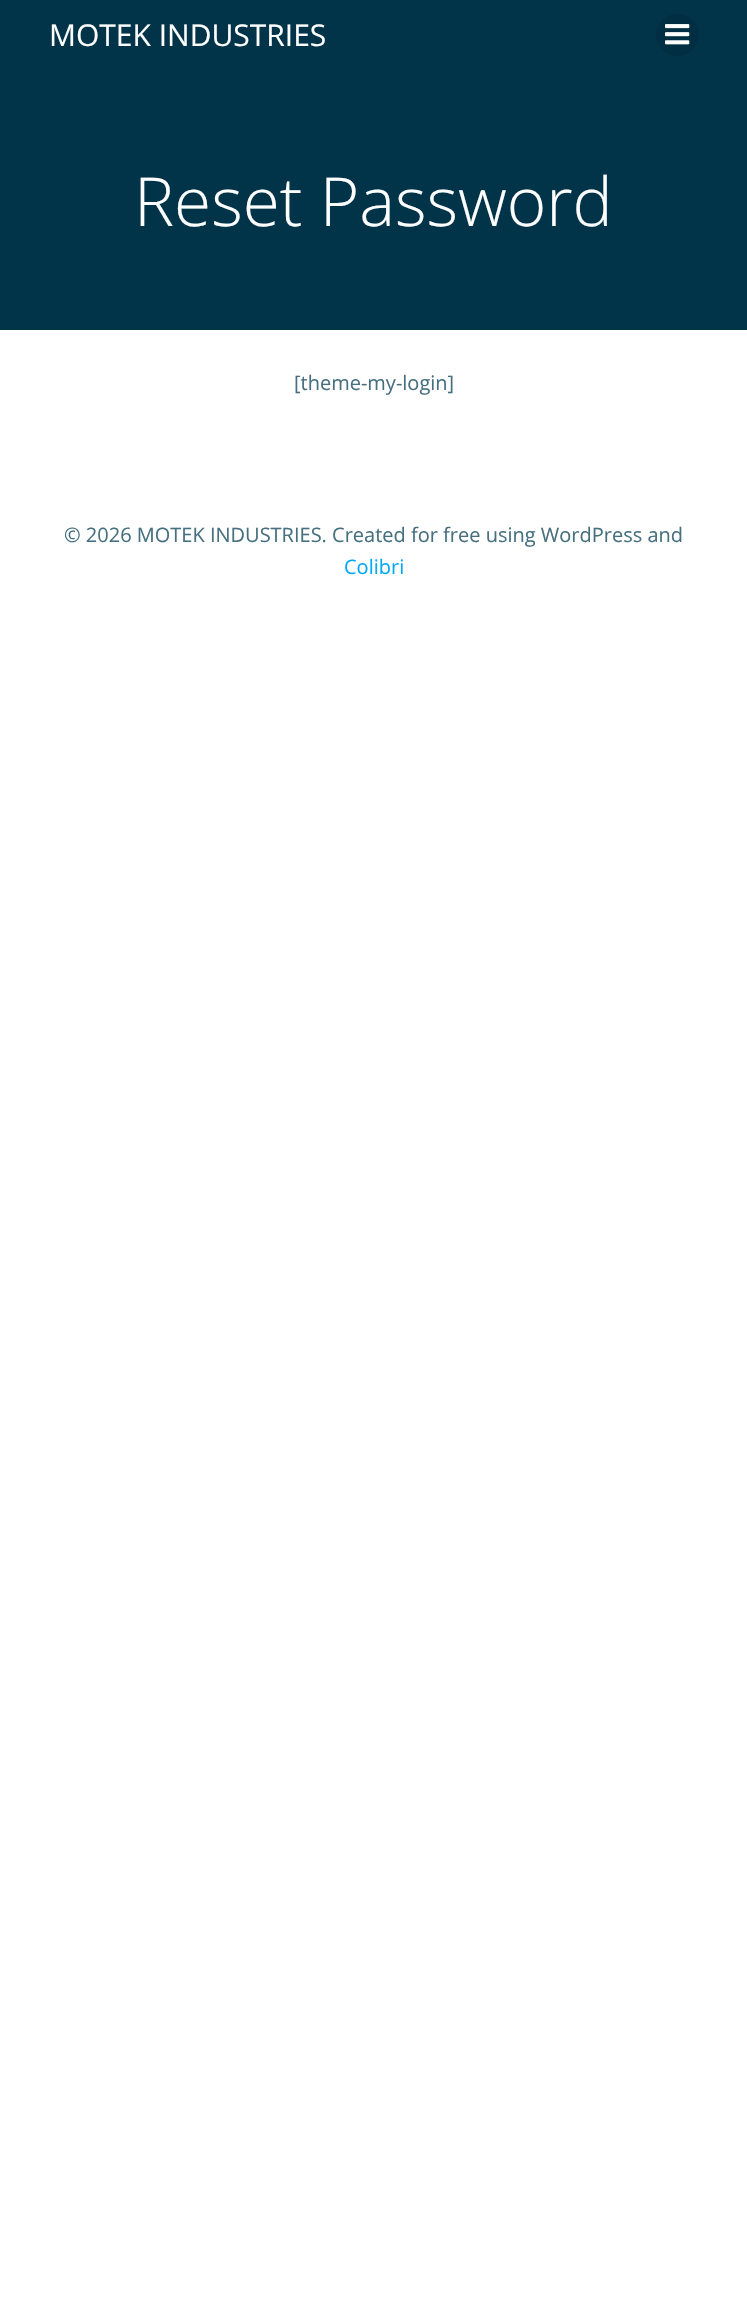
#include "include/core/SkBlurTypes.h"
#include "include/core/SkCanvas.h"
#include "include/core/SkData.h"
#include "include/core/SkFont.h"
#include "include/core/SkFontMgr.h"
#include "include/core/SkImage.h"
#include "include/core/SkMaskFilter.h"
#include "include/core/SkPaint.h"
#include "include/core/SkPathBuilder.h"
#include "include/core/SkTextBlob.h"
#include "include/effects/SkDashPathEffect.h"
#include "include/effects/SkGradientShader.h"
#include "include/utils/SkParsePath.h"

extern sk_sp<SkFontMgr> fontMgr;

void draw(SkCanvas* canvas) {
    SkPaint p;
    p.setAntiAlias(true);
    auto font = [&](const char* family, int weight, float size, bool italic = false) {
        SkFontStyle style(weight, SkFontStyle::kNormal_Width,
            italic ? SkFontStyle::kItalic_Slant : SkFontStyle::kUpright_Slant);
        SkFont result(fontMgr->matchFamilyStyle(family, style), size);
        result.setSubpixel(true);
        return result;
    };
    auto drawPhoto = [&](const char* path, float l, float t, float r, float b) {
        auto image = SkImages::DeferredFromEncodedData(SkData::MakeFromFileName(path));
        canvas->drawImageRect(image, SkRect::MakeLTRB(l, t, r, b), SkSamplingOptions());
    };
    canvas->clear(0xFFFFFFFF);
    p.setColor(0xFF013349);
    canvas->drawRect(SkRect::MakeLTRB(0, 0, 747, 330), p);
    auto font1 = font("Open Sans", 400, 30);
    p.setColor(0xFFFFFFFF);
    canvas->drawString("MOTEK INDUSTRIES", 49, 46, font1, p);
    p.setColor(0xFF012E42);
    canvas->drawRoundRect(SkRect::MakeLTRB(656, 14, 699, 56), 21, 21, p);
    drawPhoto("media/1.png", 665, 24, 690, 45);
    auto font2 = font("Open Sans", 300, 67.5f);
    p.setColor(0xFFFFFFFF);
    canvas->drawString("Reset Password", 134, 226, font2, p);
    auto font3 = font("Open Sans", 400, 20);
    p.setColor(0xFF46707F);
    canvas->drawString("[theme-my-login]", 294, 390, font3, p);
    canvas->drawString("© 2026 MOTEK INDUSTRIES. Created for free using WordPress and", 64, 542, font3, p);
    p.setColor(0xFF03A9F4);
    canvas->drawString("Colibri", 344, 574, font3, p);
}
